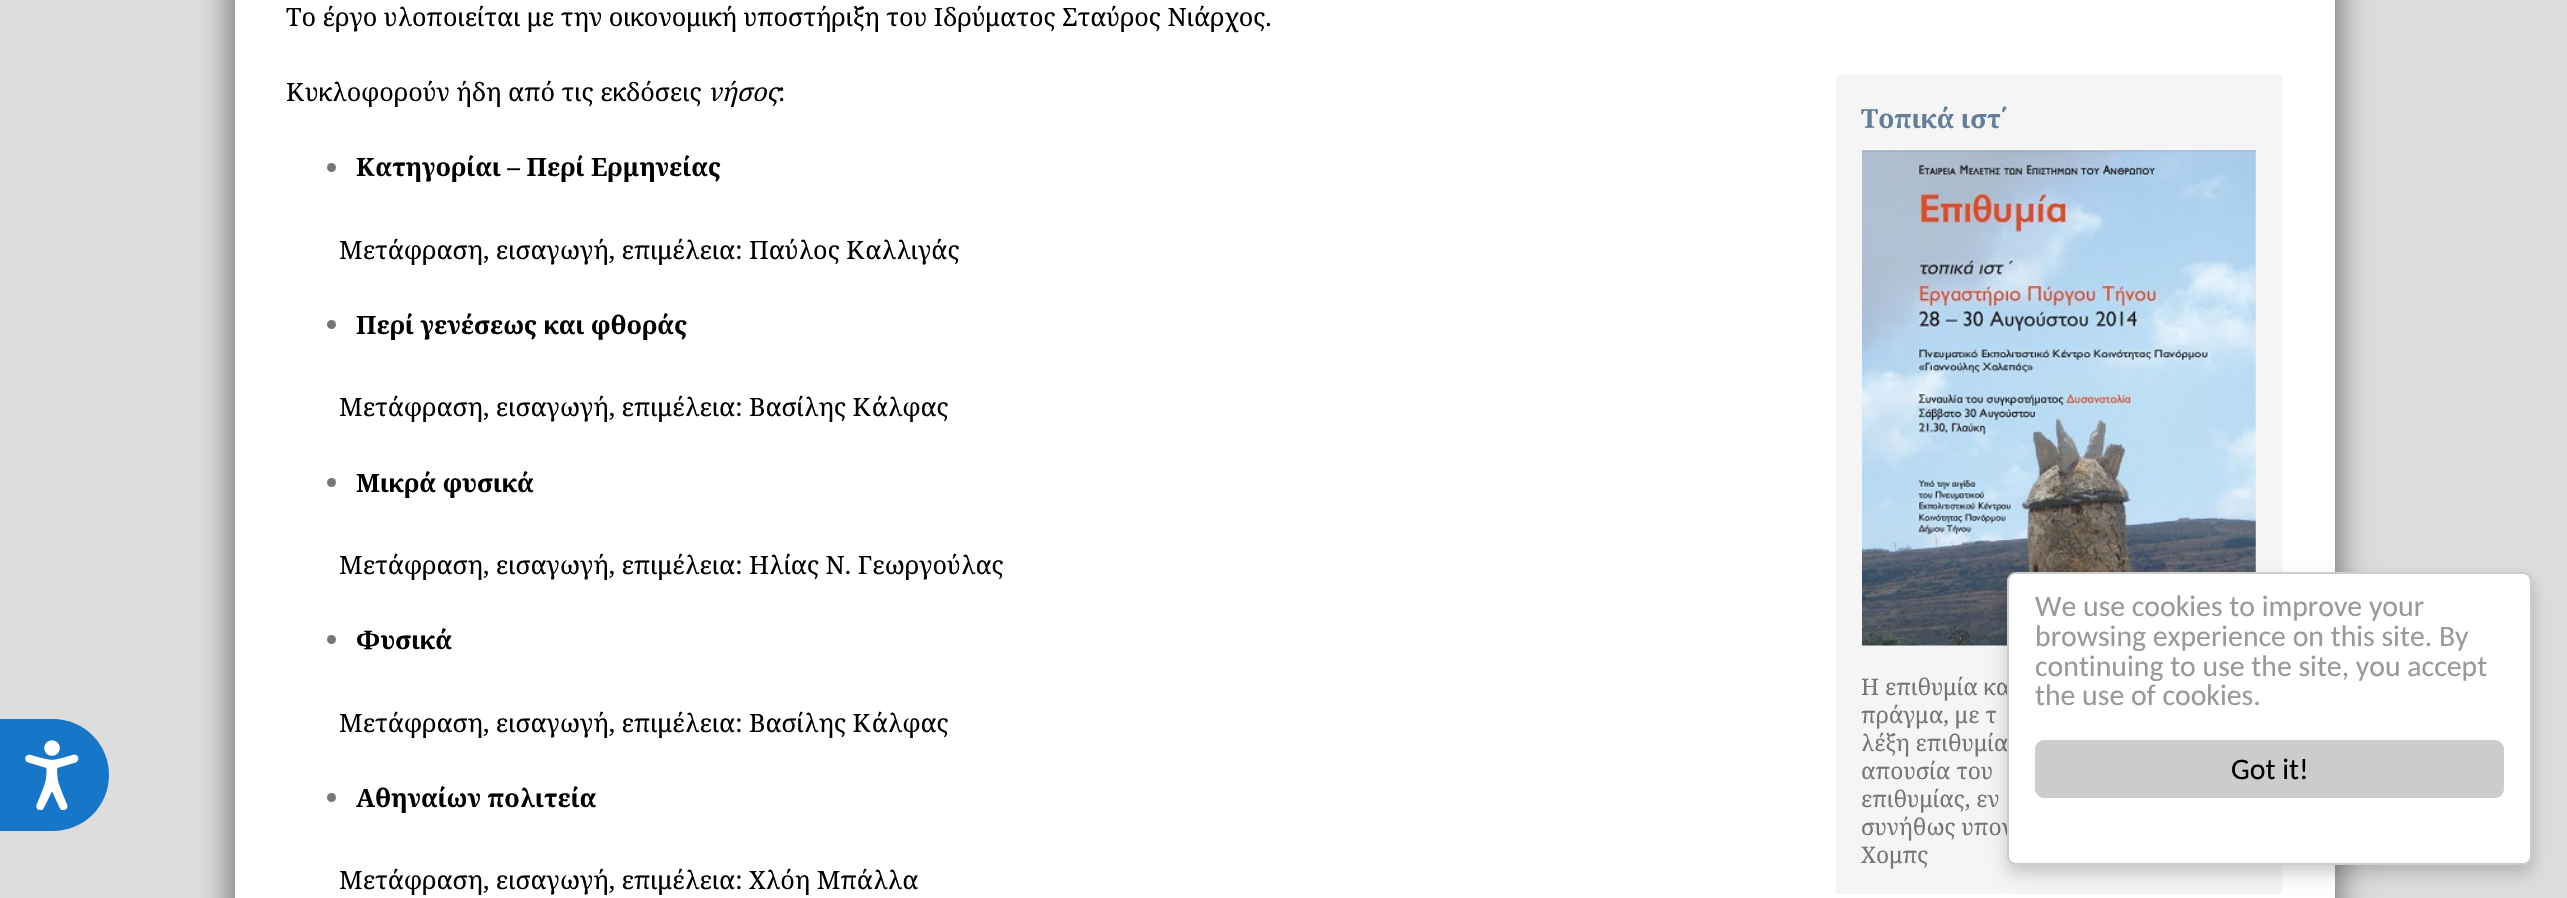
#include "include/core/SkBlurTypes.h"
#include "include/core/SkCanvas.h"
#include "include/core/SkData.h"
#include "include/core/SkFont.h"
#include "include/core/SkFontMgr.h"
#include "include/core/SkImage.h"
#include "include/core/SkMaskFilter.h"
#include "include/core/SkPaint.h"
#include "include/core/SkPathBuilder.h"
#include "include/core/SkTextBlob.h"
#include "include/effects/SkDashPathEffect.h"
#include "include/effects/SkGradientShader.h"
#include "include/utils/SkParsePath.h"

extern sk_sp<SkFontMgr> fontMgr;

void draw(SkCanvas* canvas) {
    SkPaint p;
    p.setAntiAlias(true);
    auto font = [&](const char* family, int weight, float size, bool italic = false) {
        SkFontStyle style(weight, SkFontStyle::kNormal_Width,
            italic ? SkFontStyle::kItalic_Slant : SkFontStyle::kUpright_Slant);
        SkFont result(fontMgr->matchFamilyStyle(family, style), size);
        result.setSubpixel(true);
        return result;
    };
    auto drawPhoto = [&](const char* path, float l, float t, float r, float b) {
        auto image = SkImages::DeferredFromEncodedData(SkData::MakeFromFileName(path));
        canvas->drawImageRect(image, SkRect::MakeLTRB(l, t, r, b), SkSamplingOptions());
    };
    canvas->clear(0xFFDDDDDD);
    p.setColor(0xFF1876C9);
    canvas->drawPath(SkPathBuilder().moveTo(0, 719).lineTo(53, 719).cubicTo(84, 719, 109, 744, 109, 775).cubicTo(109, 806, 84, 831, 53, 831).lineTo(0, 831).close().detach(), p);
    drawPhoto("media/1.png", 25, 740, 79, 810);
    p.setColor(0x80000000);
    p.setMaskFilter(SkMaskFilter::MakeBlur(kNormal_SkBlurStyle, 15.5f));
    canvas->drawRect(SkRect::MakeLTRB(231, -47, 2338, 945), p);
    p.setMaskFilter(nullptr);
    p.setColor(0xFFFFFFFF);
    canvas->drawRect(SkRect::MakeLTRB(235, 0, 2335, 898), p);
    auto font1 = font("Noto Serif", 400, 25.2f);
    p.setColor(0xFF000000);
    canvas->drawString("Το έργο υλοποιείται με την οικονομική υποστήριξη του Ιδρύματος Σταύρος Νιάρχος.", 286, 26, font1, p);
    canvas->drawString("Κυκλοφορούν ήδη από τις εκδόσεις", 286, 101, font1, p);
    auto font2 = font("Noto Serif", 400, 25.2f, true);
    canvas->drawString("νήσος", 708, 101, font2, p);
    canvas->drawString(":", 778, 101, font1, p);
    p.setColor(0xFF767676);
    canvas->drawCircle(331.5f, 167.5f, 4.5f, p);
    auto font3 = font("Noto Serif", 700, 25.2f);
    p.setColor(0xFF000000);
    canvas->drawString("Κατηγορίαι – Περί Ερμηνείας", 356, 176, font3, p);
    canvas->drawString("Μετάφραση, εισαγωγή, επιμέλεια: Παύλος Καλλιγάς", 339, 259, font1, p);
    p.setColor(0xFF767676);
    canvas->drawCircle(331.5f, 324.5f, 4.5f, p);
    p.setColor(0xFF000000);
    canvas->drawString("Περί γενέσεως και φθοράς", 356, 334, font3, p);
    canvas->drawString("Μετάφραση, εισαγωγή, επιμέλεια: Βασίλης Κάλφας", 339, 416, font1, p);
    p.setColor(0xFF767676);
    canvas->drawCircle(331.5f, 482.5f, 4.5f, p);
    p.setColor(0xFF000000);
    canvas->drawString("Μικρά φυσικά", 356, 492, font3, p);
    canvas->drawString("Μετάφραση, εισαγωγή, επιμέλεια: Ηλίας Ν. Γεωργούλας", 339, 574, font1, p);
    p.setColor(0xFF767676);
    canvas->drawCircle(331.5f, 639.5f, 4.5f, p);
    p.setColor(0xFF000000);
    canvas->drawString("Φυσικά", 356, 649, font3, p);
    canvas->drawString("Μετάφραση, εισαγωγή, επιμέλεια: Βασίλης Κάλφας", 339, 732, font1, p);
    p.setColor(0xFF767676);
    canvas->drawCircle(331.5f, 797.5f, 4.5f, p);
    p.setColor(0xFF000000);
    canvas->drawString("Αθηναίων πολιτεία", 356, 807, font3, p);
    canvas->drawString("Μετάφραση, εισαγωγή, επιμέλεια: Χλόη Μπάλλα", 339, 889, font1, p);
    p.setColor(0xFFF5F5F5);
    canvas->drawRect(SkRect::MakeLTRB(1836, 75, 2282, 894), p);
    auto font4 = font("Noto Serif", 700, 26.25f);
    p.setColor(0xFF647E9A);
    canvas->drawString("Τοπικά ιστ΄", 1861, 128, font4, p);
    drawPhoto("media/2.png", 1862, 150, 2256, 646);
    auto font5 = font("Noto Serif", 400, 22.75f);
    p.setColor(0xFF767676);
    {
        const struct { const char* s; float x, y; } items[] = {
            {"Η επιθυμία κα", 1861, 695},
            {"πράγμα, με τ", 1861, 723},
            {"λέξη επιθυμία", 1861, 751},
            {"απουσία του", 1861, 779},
            {"επιθυμίας, εν", 1861, 807},
            {"συνήθως υπον", 1861, 835},
            {"Χομπς", 1861, 863},
        };
        for (auto [s, x, y] : items) {
            canvas->drawString(s, x, y, font5, p);
        }
    }
    p.setColor(0x33000000);
    p.setMaskFilter(SkMaskFilter::MakeBlur(kNormal_SkBlurStyle, 9));
    canvas->drawRoundRect(SkRect::MakeLTRB(2007, 581, 2532, 873), 9, 9, p);
    p.setMaskFilter(nullptr);
    p.setColor(0xFFFFFFFF);
    canvas->drawRoundRect(SkRect::MakeLTRB(2008, 573, 2531, 864), 8, 8, p);
    p.setStyle(SkPaint::kStroke_Style);
    p.setStrokeWidth(2);
    p.setColor(0xFFCCCCCC);
    canvas->drawRoundRect(SkRect::MakeLTRB(2008, 573, 2531, 864), 8, 8, p);
    auto font6 = font("Carlito", 400, 29.75f);
    p.setStyle(SkPaint::kFill_Style);
    p.setColor(0xFF999999);
    {
        const struct { const char* s; float x, y; } items[] = {
            {"We use cookies to improve your", 2035, 616},
            {"browsing experience on this site. By", 2035, 646},
            {"continuing to use the site, you accept", 2035, 676},
            {"the use of cookies.", 2035, 705},
        };
        for (auto [s, x, y] : items) {
            canvas->drawString(s, x, y, font6, p);
        }
    }
    p.setColor(0xFFCCCCCC);
    canvas->drawRoundRect(SkRect::MakeLTRB(2035, 740, 2504, 798), 9, 9, p);
    p.setColor(0xFF000000);
    canvas->drawString("Got it!", 2231, 779, font6, p);
}
